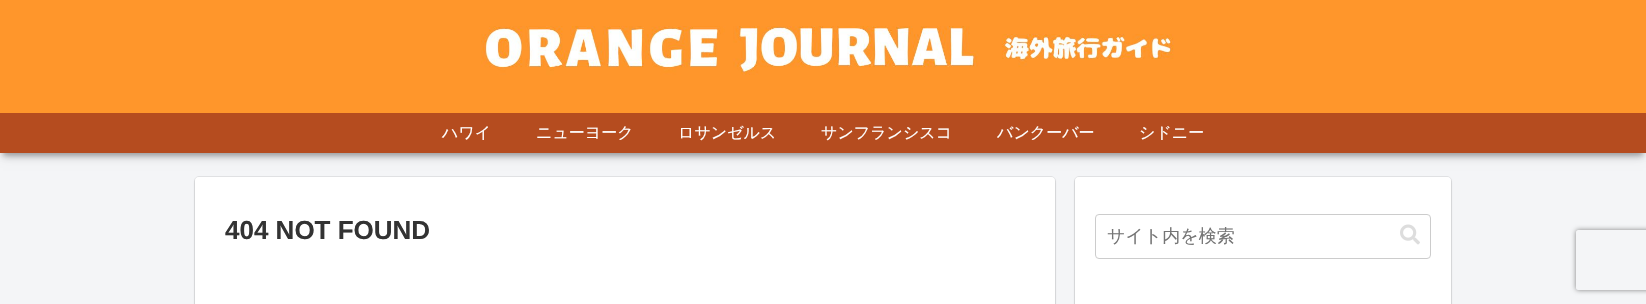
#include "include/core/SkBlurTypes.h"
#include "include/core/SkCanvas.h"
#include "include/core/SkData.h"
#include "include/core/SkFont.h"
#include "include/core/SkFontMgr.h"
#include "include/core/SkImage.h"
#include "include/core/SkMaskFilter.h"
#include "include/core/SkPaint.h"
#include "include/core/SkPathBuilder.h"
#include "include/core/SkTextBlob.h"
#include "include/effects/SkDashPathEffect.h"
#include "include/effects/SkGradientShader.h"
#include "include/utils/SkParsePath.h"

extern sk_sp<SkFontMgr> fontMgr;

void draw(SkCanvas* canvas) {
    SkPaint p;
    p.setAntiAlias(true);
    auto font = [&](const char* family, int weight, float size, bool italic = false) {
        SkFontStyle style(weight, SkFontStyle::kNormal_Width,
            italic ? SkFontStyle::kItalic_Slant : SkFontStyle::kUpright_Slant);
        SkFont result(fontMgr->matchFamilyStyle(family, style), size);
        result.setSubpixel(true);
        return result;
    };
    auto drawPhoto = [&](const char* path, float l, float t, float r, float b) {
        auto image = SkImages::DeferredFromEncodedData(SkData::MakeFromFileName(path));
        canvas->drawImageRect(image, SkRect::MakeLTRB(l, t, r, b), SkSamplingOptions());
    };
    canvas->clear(0xFFF4F5F7);
    p.setColor(0x2E000000);
    p.setMaskFilter(SkMaskFilter::MakeBlur(kNormal_SkBlurStyle, 5));
    canvas->drawRect(SkRect::MakeLTRB(3, 9, 1643, 156), p);
    p.setMaskFilter(nullptr);
    p.setColor(0x3D000000);
    p.setMaskFilter(SkMaskFilter::MakeBlur(kNormal_SkBlurStyle, 2.5f));
    canvas->drawRect(SkRect::MakeLTRB(3, 9, 1643, 156), p);
    p.setMaskFilter(nullptr);
    p.setColor(0xFFFF962B);
    canvas->drawRect(SkRect::MakeLTRB(0, 0, 1646, 113), p);
    drawPhoto("media/1.png", 481, 26, 1174, 75);
    p.setColor(0xFFB54C1F);
    canvas->drawRect(SkRect::MakeLTRB(0, 113, 1646, 153), p);
    auto font1 = font("WenQuanYi Zen Hei", 500, 16);
    p.setColor(0xFFFFFFFF);
    {
        const struct { const char* s; float x, y; } items[] = {
            {"ハワイ", 442, 138},
            {"ニューヨーク", 536, 138},
            {"ロサンゼルス", 678, 138},
            {"サンフランシスコ", 821, 138},
            {"バンクーバー", 997, 138},
            {"シドニー", 1139, 138},
        };
        for (auto [s, x, y] : items) {
            canvas->drawString(s, x, y, font1, p);
        }
    }
    p.setStyle(SkPaint::kStroke_Style);
    p.setStrokeWidth(1);
    p.setColor(0xFFE0E1E3);
    canvas->drawRoundRect(SkRect::MakeLTRB(194.5f, 176.5f, 1055.5f, 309.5f), 4.5f, 4.5f, p);
    p.setStyle(SkPaint::kFill_Style);
    p.setColor(0x29000000);
    p.setMaskFilter(SkMaskFilter::MakeBlur(kNormal_SkBlurStyle, 1));
    canvas->drawRoundRect(SkRect::MakeLTRB(195, 179, 1055, 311), 4, 4, p);
    p.setMaskFilter(nullptr);
    p.setColor(0xFFFFFFFF);
    canvas->drawRoundRect(SkRect::MakeLTRB(195, 177, 1055, 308), 4, 4, p);
    auto font2 = font("Liberation Sans", 700, 26);
    p.setColor(0xFF333333);
    canvas->drawString("404 NOT FOUND", 225, 239, font2, p);
    p.setStyle(SkPaint::kStroke_Style);
    p.setColor(0xFFE0E1E3);
    canvas->drawRoundRect(SkRect::MakeLTRB(1074.5f, 176.5f, 1451.5f, 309.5f), 4.5f, 4.5f, p);
    p.setStyle(SkPaint::kFill_Style);
    p.setColor(0x29000000);
    p.setMaskFilter(SkMaskFilter::MakeBlur(kNormal_SkBlurStyle, 1));
    canvas->drawRoundRect(SkRect::MakeLTRB(1075, 179, 1451, 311), 4, 4, p);
    p.setMaskFilter(nullptr);
    p.setColor(0xFFFFFFFF);
    canvas->drawRoundRect(SkRect::MakeLTRB(1075, 177, 1451, 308), 4, 4, p);
    p.setStyle(SkPaint::kStroke_Style);
    p.setColor(0xFFCCCCCC);
    canvas->drawRoundRect(SkRect::MakeLTRB(1095.5f, 214.5f, 1430.5f, 258.5f), 3.5f, 3.5f, p);
    auto font3 = font("WenQuanYi Zen Hei", 500, 18);
    p.setStyle(SkPaint::kFill_Style);
    p.setColor(0xFF757575);
    canvas->drawString("サイト内を検索", 1107, 242, font3, p);
    drawPhoto("media/2.png", 1400, 224, 1420, 245);
    canvas->save();
    canvas->clipPath(SkPathBuilder(SkPathFillType::kEvenOdd).moveTo(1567, 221).lineTo(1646, 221).lineTo(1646, 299).lineTo(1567, 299).close().moveTo(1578, 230).lineTo(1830, 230).cubicTo(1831, 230, 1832, 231, 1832, 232).lineTo(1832, 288).cubicTo(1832, 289, 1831, 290, 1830, 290).lineTo(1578, 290).cubicTo(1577, 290, 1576, 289, 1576, 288).lineTo(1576, 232).cubicTo(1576, 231, 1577, 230, 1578, 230).close().detach(), true);
    p.setColor(0xFF808080);
    p.setMaskFilter(SkMaskFilter::MakeBlur(kNormal_SkBlurStyle, 2.5f));
    canvas->drawRoundRect(SkRect::MakeLTRB(1576, 230, 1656, 290), 2, 2, p);
    p.setMaskFilter(nullptr);
    canvas->restore();
}
